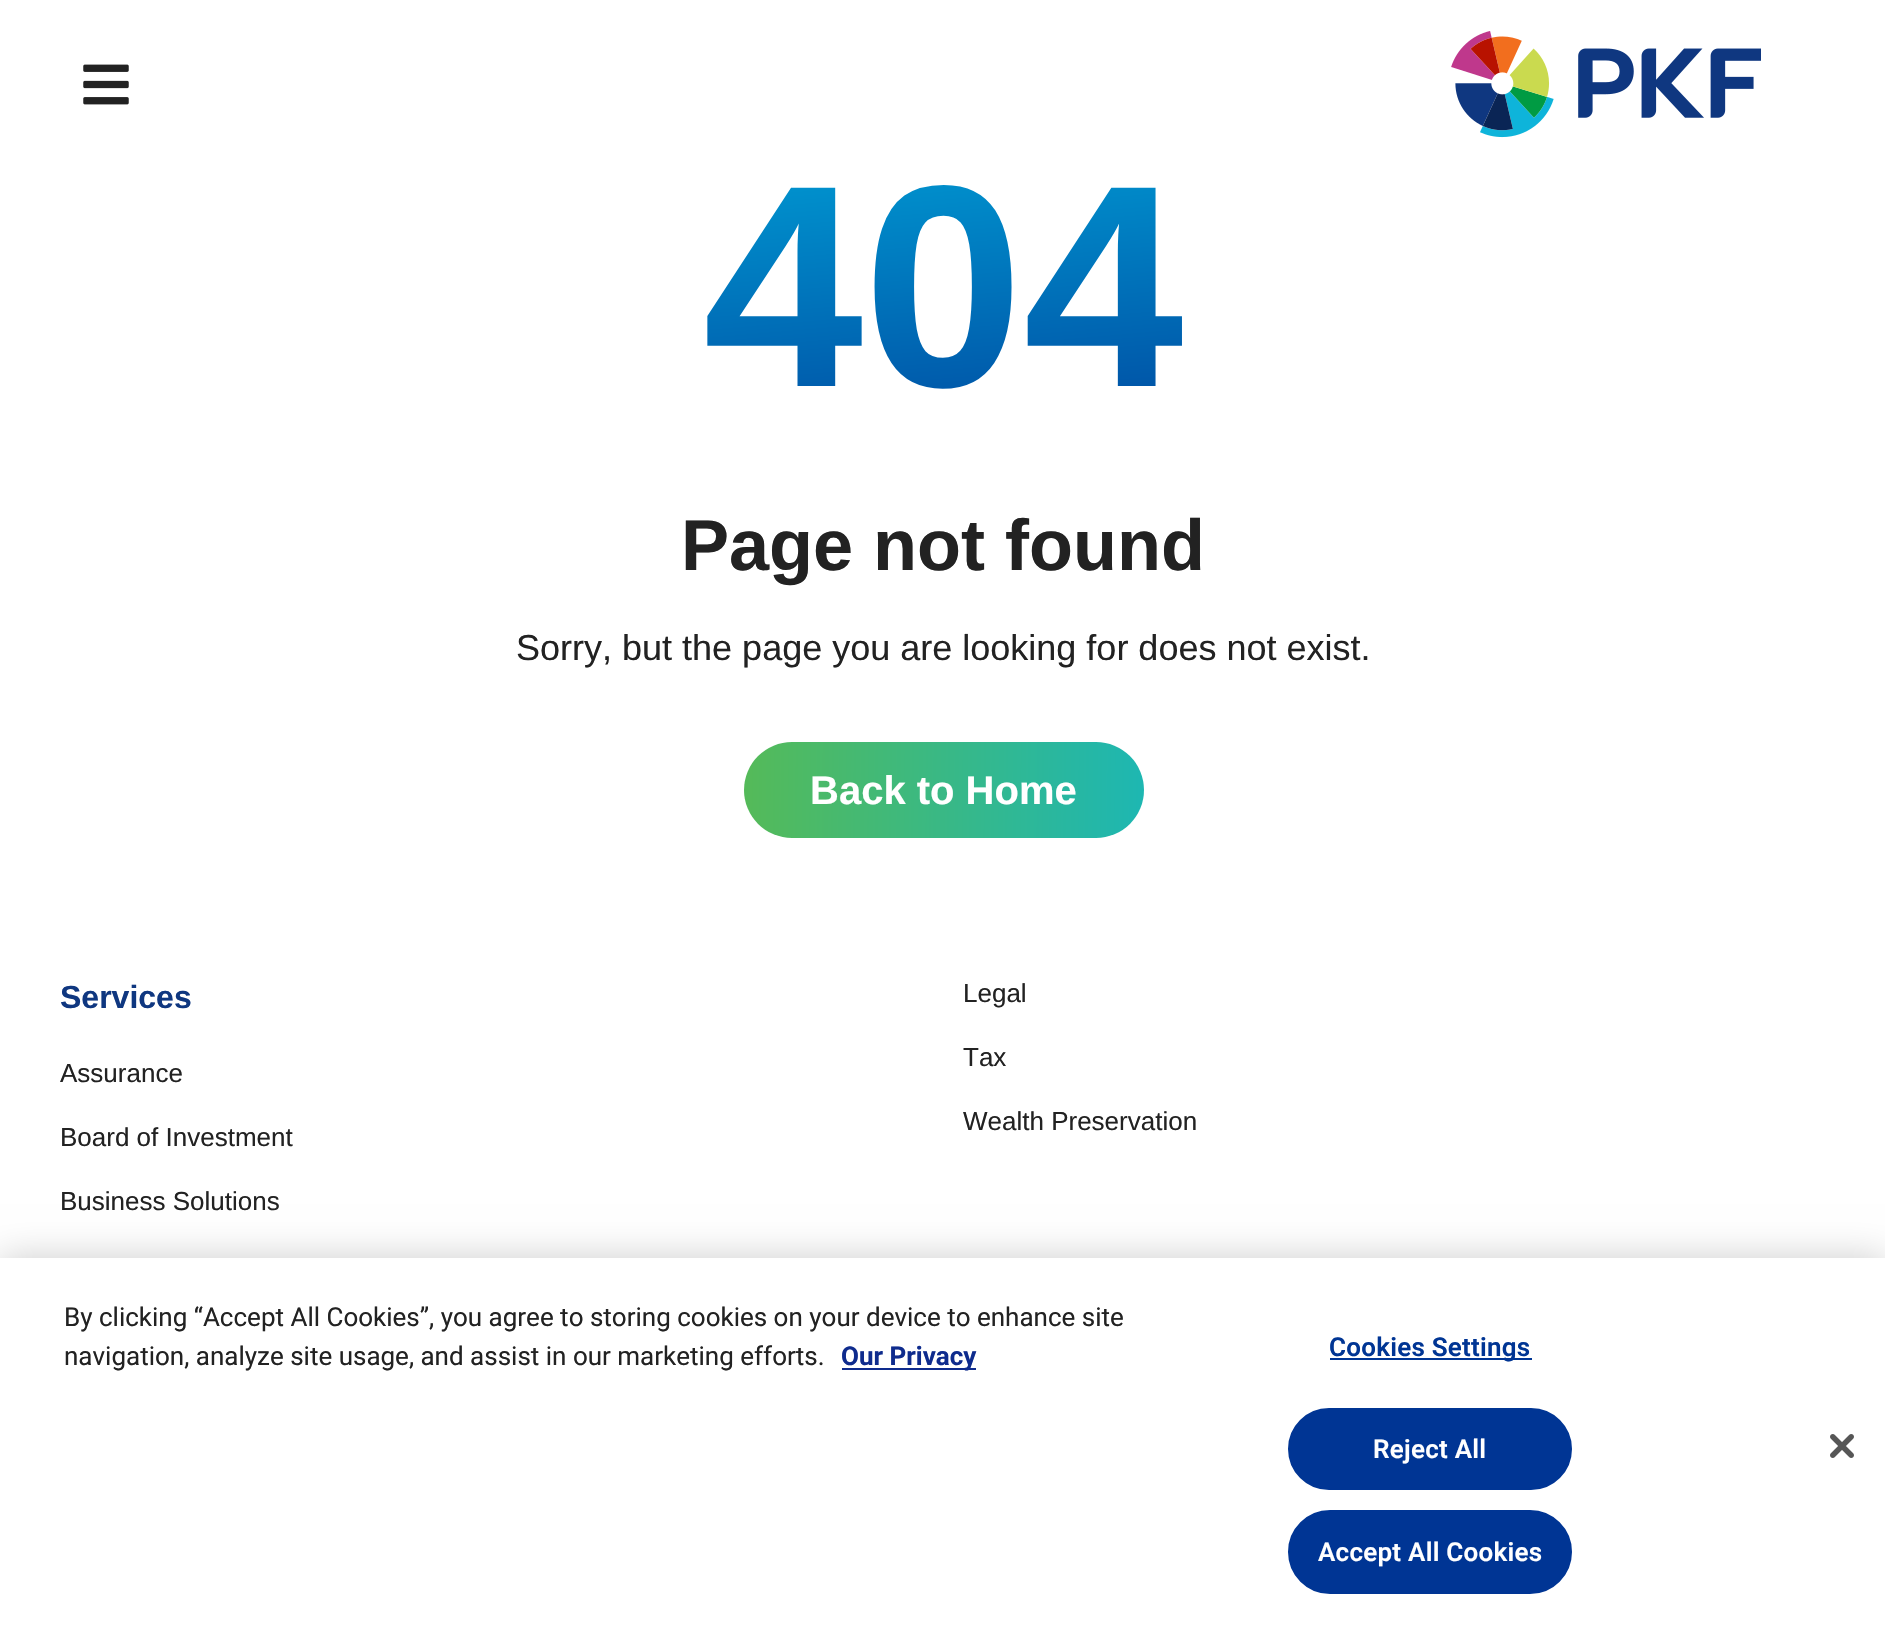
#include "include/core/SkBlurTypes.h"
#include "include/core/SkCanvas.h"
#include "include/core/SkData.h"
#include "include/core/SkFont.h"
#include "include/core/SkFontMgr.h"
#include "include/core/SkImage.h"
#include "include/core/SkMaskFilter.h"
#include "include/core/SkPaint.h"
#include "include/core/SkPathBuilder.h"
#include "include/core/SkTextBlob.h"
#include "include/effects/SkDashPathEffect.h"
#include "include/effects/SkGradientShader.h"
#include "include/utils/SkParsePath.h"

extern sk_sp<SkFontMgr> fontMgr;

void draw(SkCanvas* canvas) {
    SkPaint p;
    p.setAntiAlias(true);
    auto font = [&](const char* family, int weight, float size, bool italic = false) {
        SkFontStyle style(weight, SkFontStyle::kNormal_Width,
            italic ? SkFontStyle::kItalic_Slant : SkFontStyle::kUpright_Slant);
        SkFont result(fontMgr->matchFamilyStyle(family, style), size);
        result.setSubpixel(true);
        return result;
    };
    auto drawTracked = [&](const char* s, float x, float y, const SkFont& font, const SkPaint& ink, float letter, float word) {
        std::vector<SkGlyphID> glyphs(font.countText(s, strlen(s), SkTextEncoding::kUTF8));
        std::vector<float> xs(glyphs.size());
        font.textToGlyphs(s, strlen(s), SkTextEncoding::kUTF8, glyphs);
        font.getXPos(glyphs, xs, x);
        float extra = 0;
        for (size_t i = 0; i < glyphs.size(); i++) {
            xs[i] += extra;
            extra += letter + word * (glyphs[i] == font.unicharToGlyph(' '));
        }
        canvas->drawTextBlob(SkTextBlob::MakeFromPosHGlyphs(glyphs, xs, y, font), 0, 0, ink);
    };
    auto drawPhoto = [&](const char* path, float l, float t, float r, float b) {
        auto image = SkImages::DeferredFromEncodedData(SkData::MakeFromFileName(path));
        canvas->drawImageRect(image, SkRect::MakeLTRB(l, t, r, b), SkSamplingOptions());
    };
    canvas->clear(0xFFFFFFFF);
    drawPhoto("media/1.png", 83, 64, 129, 105);
    drawPhoto("media/2.png", 1451, 31, 1761, 138);
    auto font1 = font("Liberation Sans", 700, 288);
    {
        const SkColor colors[] = {0xFF003594, 0xFF00B3E2};
        const float stops[] = {0, 1};
        const SkPoint ends[] = {{965, 541}, {921, 33}};
        p.setShader(SkGradientShader::MakeLinear(ends, colors, stops, 2, SkTileMode::kClamp));
        p.setAlpha(255);
    }
    canvas->drawString("404", 703, 386, font1, p);
    auto font2 = font("Liberation Sans", 700, 72);
    p.setShader(nullptr);
    p.setColor(0xFF222222);
    canvas->drawString("Page not found", 681, 570, font2, p);
    auto font3 = font("Liberation Sans", 400, 36);
    canvas->drawString("Sorry, but the page you are looking for does not exist.", 516, 660, font3, p);
    {
        const SkColor colors[] = {0xFF16B6BE, 0xFF60BB46};
        const float stops[] = {0, 1};
        const SkPoint ends[] = {{1198, 793}, {661, 787}};
        p.setShader(SkGradientShader::MakeLinear(ends, colors, stops, 2, SkTileMode::kClamp));
        p.setAlpha(255);
    }
    canvas->drawRoundRect(SkRect::MakeLTRB(744, 742, 1144, 838), 48, 48, p);
    auto font4 = font("Liberation Sans", 700, 40);
    p.setShader(nullptr);
    p.setColor(0xFFFFFFFF);
    canvas->drawString("Back to Home", 810, 804, font4, p);
    auto font5 = font("Liberation Sans", 700, 32);
    p.setColor(0xFF0F3780);
    canvas->drawString("Services", 60, 1008, font5, p);
    auto font6 = font("Liberation Sans", 400, 26);
    p.setColor(0xFF222222);
    {
        const struct { const char* s; float x, y; } items[] = {
            {"Assurance", 60, 1082},
            {"Board of Investment", 60, 1146},
            {"Business Solutions", 60, 1210},
            {"Legal", 963, 1002},
            {"Tax", 963, 1066},
            {"Wealth Preservation", 963, 1130},
        };
        for (auto [s, x, y] : items) {
            canvas->drawString(s, x, y, font6, p);
        }
    }
    p.setColor(0x33000000);
    p.setMaskFilter(SkMaskFilter::MakeBlur(kNormal_SkBlurStyle, 18));
    canvas->drawRect(SkRect::MakeLTRB(0, 1258, 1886, 1634), p);
    p.setMaskFilter(nullptr);
    p.setColor(0xFFFFFFFF);
    canvas->drawRect(SkRect::MakeLTRB(0, 1258, 1885, 1634), p);
    auto font7 = font("Roboto", 400, 26);
    p.setColor(0xFF222222);
    canvas->drawString("By clicking “Accept All Cookies”, you agree to storing cookies on your device to enhance site", 64, 1326, font7, p);
    canvas->drawString("navigation, analyze site usage, and assist in our marketing efforts.", 64, 1365, font7, p);
    p.setColor(0xFF0E2B8D);
    canvas->drawRect(SkRect::MakeLTRB(842, 1368, 976, 1370), p);
    auto font8 = font("Roboto", 700, 26);
    canvas->drawString("Our Privacy", 841, 1365, font8, p);
    p.setColor(0xFF003594);
    canvas->drawRect(SkRect::MakeLTRB(1330, 1358, 1532, 1360), p);
    auto font9 = font("Roboto", 600, 26);
    drawTracked("Cookies Settings", 1329, 1356, font9, p, 0.25f, 0);
    canvas->drawRoundRect(SkRect::MakeLTRB(1289, 1409, 1571, 1489), 40, 40, p);
    p.setStyle(SkPaint::kStroke_Style);
    p.setStrokeWidth(2);
    canvas->drawRoundRect(SkRect::MakeLTRB(1289, 1409, 1571, 1489), 40, 40, p);
    p.setStyle(SkPaint::kFill_Style);
    p.setColor(0xFFFFFFFF);
    drawTracked("Reject All", 1373, 1458, font9, p, 0.25f, 0);
    p.setColor(0xFF003594);
    canvas->drawRoundRect(SkRect::MakeLTRB(1289, 1511, 1571, 1593), 41, 41, p);
    p.setStyle(SkPaint::kStroke_Style);
    canvas->drawRoundRect(SkRect::MakeLTRB(1289, 1511, 1571, 1593), 41, 41, p);
    p.setStyle(SkPaint::kFill_Style);
    p.setColor(0xFFFFFFFF);
    drawTracked("Accept All Cookies", 1318, 1561, font9, p, 0.25f, 0);
    drawPhoto("media/3.png", 1830, 1434, 1854, 1458);
}
